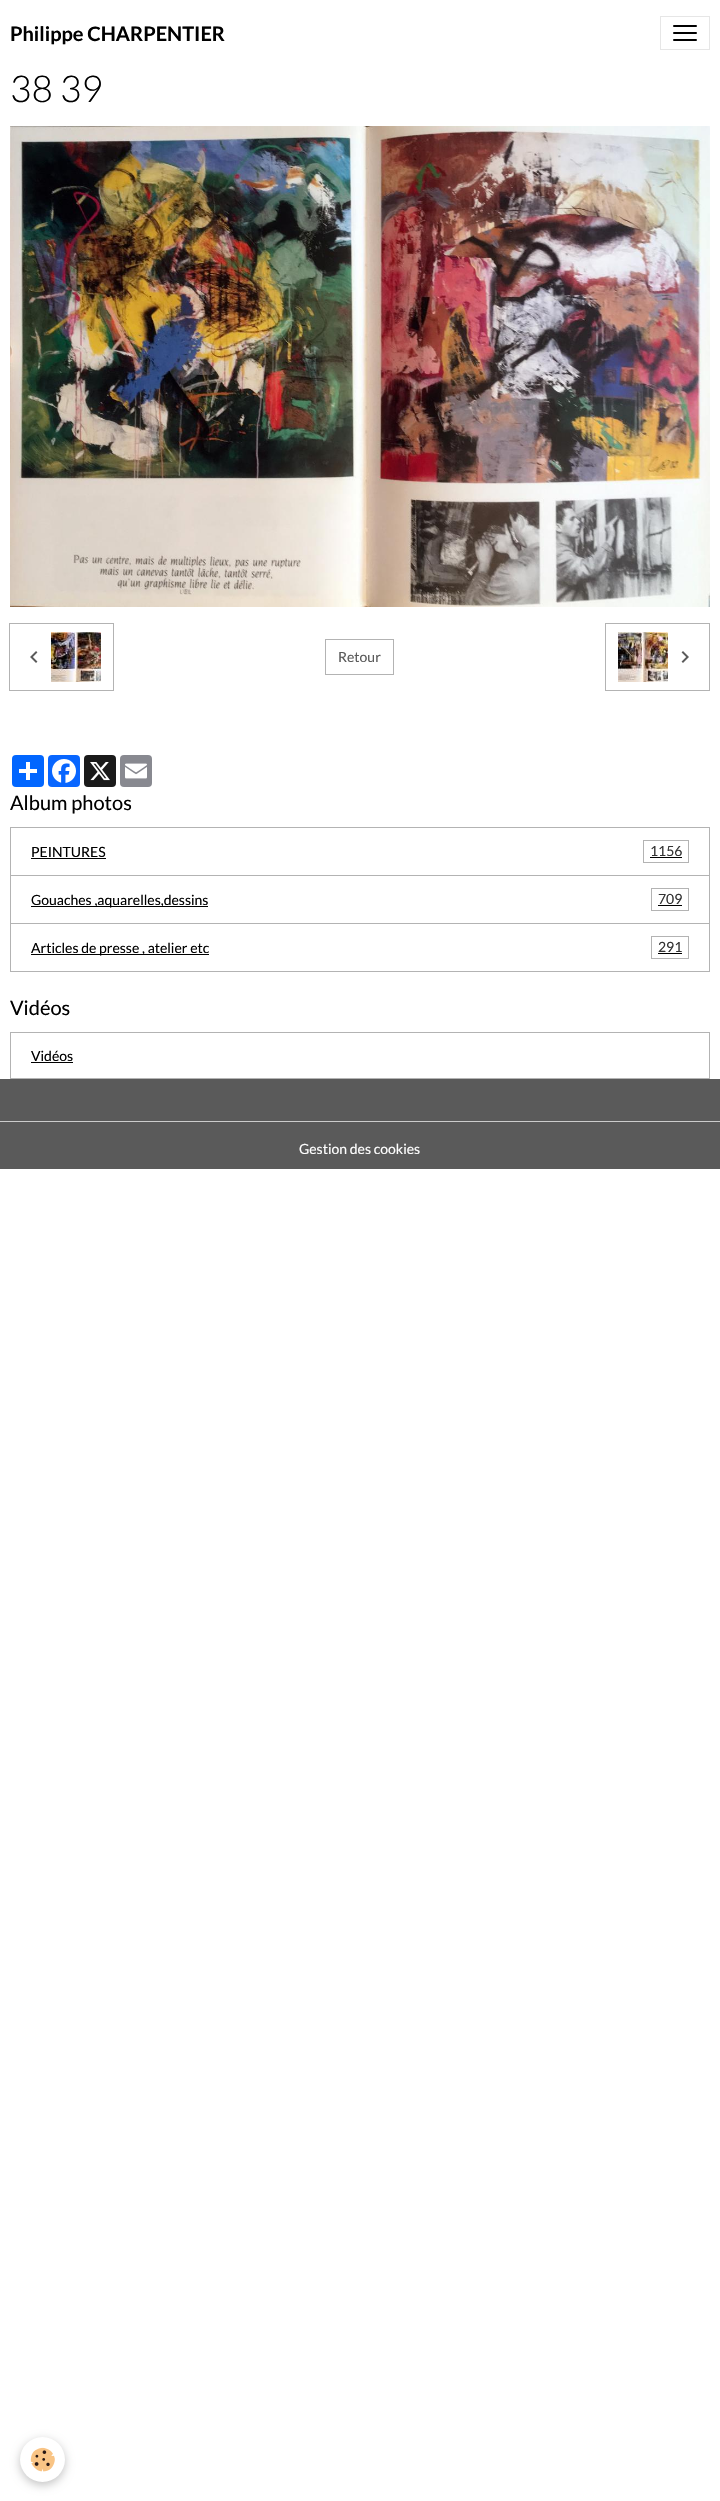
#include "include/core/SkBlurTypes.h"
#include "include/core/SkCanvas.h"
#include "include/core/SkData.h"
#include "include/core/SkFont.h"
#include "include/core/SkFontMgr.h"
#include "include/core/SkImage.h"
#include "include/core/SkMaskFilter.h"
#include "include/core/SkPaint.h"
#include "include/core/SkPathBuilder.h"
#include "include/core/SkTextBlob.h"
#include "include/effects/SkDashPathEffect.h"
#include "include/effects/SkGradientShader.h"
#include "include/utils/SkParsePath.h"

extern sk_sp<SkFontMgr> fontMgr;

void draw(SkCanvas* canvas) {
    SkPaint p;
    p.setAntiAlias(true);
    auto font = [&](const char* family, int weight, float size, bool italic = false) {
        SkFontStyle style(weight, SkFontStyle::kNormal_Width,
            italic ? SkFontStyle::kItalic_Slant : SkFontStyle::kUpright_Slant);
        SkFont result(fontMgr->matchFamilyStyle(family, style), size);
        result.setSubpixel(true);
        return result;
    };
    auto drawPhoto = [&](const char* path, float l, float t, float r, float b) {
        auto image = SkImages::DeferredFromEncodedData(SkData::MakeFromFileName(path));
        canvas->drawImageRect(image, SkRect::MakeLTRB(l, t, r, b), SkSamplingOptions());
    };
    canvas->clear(0xFFFFFFFF);
    auto font1 = font("Lato", 700, 20);
    p.setColor(0xFF000000);
    canvas->drawString("Philippe CHARPENTIER", 10, 41, font1, p);
    p.setStyle(SkPaint::kStroke_Style);
    p.setStrokeWidth(1);
    p.setColor(0xFFE6E6E6);
    canvas->drawRect(SkRect::MakeLTRB(660.5f, 16.5f, 709.5f, 49.5f), p);
    p.setStyle(SkPaint::kFill_Style);
    p.setColor(0xFF000000);
    canvas->drawRoundRect(SkRect::MakeLTRB(673, 25, 697, 27), 1, 1, p);
    canvas->drawRoundRect(SkRect::MakeLTRB(673, 32, 697, 34), 1, 1, p);
    canvas->drawRoundRect(SkRect::MakeLTRB(673, 39, 697, 41), 1, 1, p);
    auto font2 = font("Lato", 300, 37);
    canvas->drawString("38 39", 10, 102, font2, p);
    drawPhoto("media/1.png", 10, 126, 710, 607);
    p.setStyle(SkPaint::kStroke_Style);
    p.setColor(0xFFB3B3B3);
    canvas->drawRect(SkRect::MakeLTRB(9.5f, 623.5f, 113.5f, 690.5f), p);
    drawPhoto("media/2.png", 30, 651, 38, 663);
    drawPhoto("media/3.png", 51, 632, 101, 682);
    canvas->drawRect(SkRect::MakeLTRB(325.5f, 639.5f, 393.5f, 674.5f), p);
    auto font3 = font("Lato", 400, 14);
    p.setStyle(SkPaint::kFill_Style);
    p.setColor(0xFF5A5A5A);
    canvas->drawString("Retour", 338, 662, font3, p);
    p.setStyle(SkPaint::kStroke_Style);
    p.setColor(0xFFB3B3B3);
    canvas->drawRect(SkRect::MakeLTRB(605.5f, 623.5f, 709.5f, 690.5f), p);
    drawPhoto("media/4.png", 618, 632, 668, 682);
    drawPhoto("media/5.png", 681, 651, 689, 663);
    p.setStyle(SkPaint::kFill_Style);
    p.setColor(0xFF0166FF);
    canvas->drawRoundRect(SkRect::MakeLTRB(12, 755, 44, 787), 4, 4, p);
    p.setColor(0xFFFFFFFF);
    canvas->drawRect(SkRect::MakeLTRB(26, 762, 30, 780), p);
    canvas->drawRect(SkRect::MakeLTRB(19, 769, 37, 773), p);
    p.setColor(0xFF0866FF);
    canvas->drawRoundRect(SkRect::MakeLTRB(48, 755, 80, 787), 4, 4, p);
    drawPhoto("media/6.png", 52, 759, 76, 783);
    p.setColor(0xFF1A1A1A);
    canvas->drawRoundRect(SkRect::MakeLTRB(84, 755, 116, 787), 4, 4, p);
    drawPhoto("media/7.png", 90, 762, 110, 781);
    p.setColor(0xFF888990);
    canvas->drawRoundRect(SkRect::MakeLTRB(120, 755, 152, 787), 4, 4, p);
    drawPhoto("media/8.png", 125, 763, 147, 779);
    auto font4 = font("Lato", 400, 20);
    p.setColor(0xFF000000);
    canvas->drawString("Album photos", 10, 810, font4, p);
    p.setStyle(SkPaint::kStroke_Style);
    p.setColor(0xFFB3B3B3);
    canvas->drawRect(SkRect::MakeLTRB(10.5f, 827.5f, 709.5f, 875.5f), p);
    p.setStyle(SkPaint::kFill_Style);
    p.setColor(0xFF000000);
    canvas->drawString("PEINTURES", 31, 857, font3, p);
    canvas->drawRect(SkRect::MakeLTRB(31, 858, 106, 859), p);
    p.setStyle(SkPaint::kStroke_Style);
    p.setColor(0xFFB3B3B3);
    canvas->drawRect(SkRect::MakeLTRB(643.5f, 840.5f, 688.5f, 862.5f), p);
    p.setStyle(SkPaint::kFill_Style);
    p.setColor(0xFF333333);
    canvas->drawString("1156", 650, 856, font3, p);
    p.setColor(0xFF000000);
    canvas->drawRect(SkRect::MakeLTRB(650, 857, 682, 858), p);
    p.setStyle(SkPaint::kStroke_Style);
    p.setColor(0xFFB3B3B3);
    canvas->drawRect(SkRect::MakeLTRB(10.5f, 875.5f, 709.5f, 923.5f), p);
    p.setStyle(SkPaint::kFill_Style);
    p.setColor(0xFF000000);
    canvas->drawRect(SkRect::MakeLTRB(31, 906, 208, 907), p);
    canvas->drawString("Gouaches ,aquarelles,dessins", 31, 905, font3, p);
    p.setStyle(SkPaint::kStroke_Style);
    p.setColor(0xFFB3B3B3);
    canvas->drawRect(SkRect::MakeLTRB(651.5f, 888.5f, 688.5f, 910.5f), p);
    p.setStyle(SkPaint::kFill_Style);
    p.setColor(0xFF333333);
    canvas->drawString("709", 658, 904, font3, p);
    p.setColor(0xFF000000);
    canvas->drawRect(SkRect::MakeLTRB(658, 905, 682, 906), p);
    p.setStyle(SkPaint::kStroke_Style);
    p.setColor(0xFFB3B3B3);
    canvas->drawRect(SkRect::MakeLTRB(10.5f, 923.5f, 709.5f, 971.5f), p);
    p.setStyle(SkPaint::kFill_Style);
    p.setColor(0xFF000000);
    canvas->drawRect(SkRect::MakeLTRB(31, 954, 209, 955), p);
    canvas->drawString("Articles de presse , atelier etc", 31, 953, font3, p);
    p.setStyle(SkPaint::kStroke_Style);
    p.setColor(0xFFB3B3B3);
    canvas->drawRect(SkRect::MakeLTRB(651.5f, 936.5f, 688.5f, 958.5f), p);
    p.setStyle(SkPaint::kFill_Style);
    p.setColor(0xFF333333);
    canvas->drawString("291", 658, 952, font3, p);
    p.setColor(0xFF000000);
    canvas->drawRect(SkRect::MakeLTRB(658, 953, 682, 954), p);
    canvas->drawString("Vidéos", 10, 1015, font4, p);
    p.setStyle(SkPaint::kStroke_Style);
    p.setColor(0xFFB3B3B3);
    canvas->drawRect(SkRect::MakeLTRB(10.5f, 1032.5f, 709.5f, 1078.5f), p);
    p.setStyle(SkPaint::kFill_Style);
    p.setColor(0xFF000000);
    canvas->drawString("Vidéos", 31, 1061, font3, p);
    {
        const struct { float l, t, r, b; SkColor color; } items[] = {
            {31, 1062, 73, 1063, 0xFF000000},
            {0, 1079, 720, 1169, 0xFF5A5A5A},
            {0, 1121, 720, 1122, 0xFFCCCCCC},
        };
        for (auto [l, t, r, b, color] : items) {
            p.setColor(color);
            canvas->drawRect(SkRect::MakeLTRB(l, t, r, b), p);
        }
    }
    p.setColor(0xFFFFFFFF);
    canvas->drawString("Gestion des cookies", 299, 1154, font3, p);
    p.setColor(0x3D000000);
    p.setMaskFilter(SkMaskFilter::MakeBlur(kNormal_SkBlurStyle, 5));
    canvas->drawRoundRect(SkRect::MakeLTRB(20, 2440, 65, 2485), 22.5f, 22.5f, p);
    p.setMaskFilter(nullptr);
    p.setColor(0xFFFFFFFF);
    canvas->drawCircle(42.5f, 2459.5f, 22.5f, p);
    drawPhoto("media/9.png", 30, 2447, 55, 2472);
}
